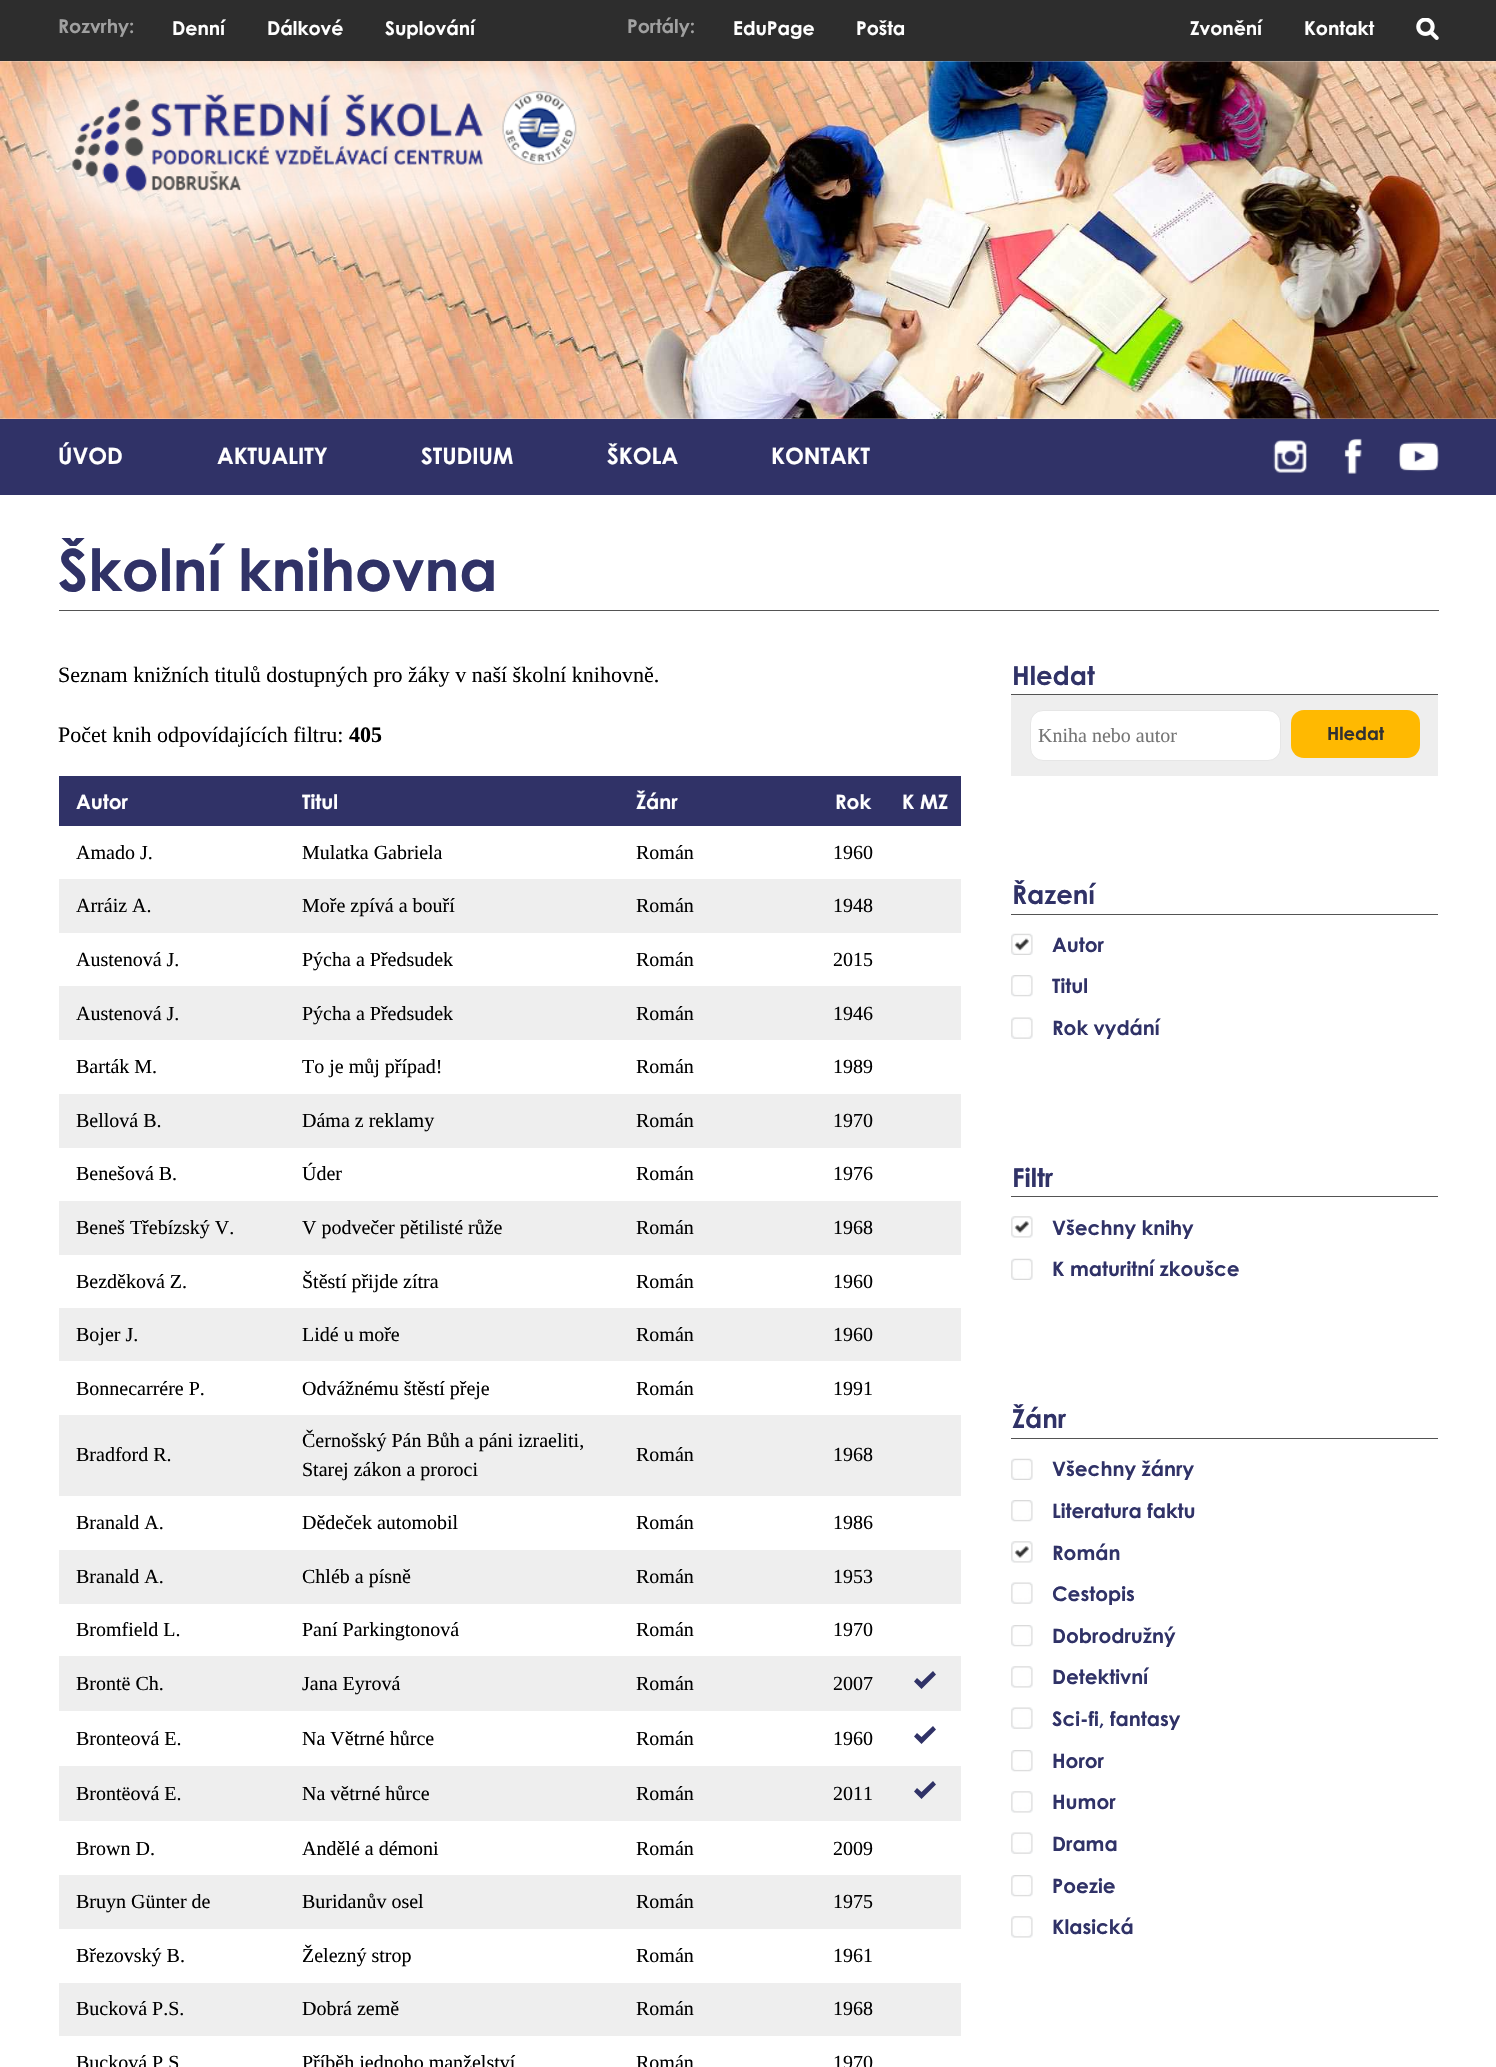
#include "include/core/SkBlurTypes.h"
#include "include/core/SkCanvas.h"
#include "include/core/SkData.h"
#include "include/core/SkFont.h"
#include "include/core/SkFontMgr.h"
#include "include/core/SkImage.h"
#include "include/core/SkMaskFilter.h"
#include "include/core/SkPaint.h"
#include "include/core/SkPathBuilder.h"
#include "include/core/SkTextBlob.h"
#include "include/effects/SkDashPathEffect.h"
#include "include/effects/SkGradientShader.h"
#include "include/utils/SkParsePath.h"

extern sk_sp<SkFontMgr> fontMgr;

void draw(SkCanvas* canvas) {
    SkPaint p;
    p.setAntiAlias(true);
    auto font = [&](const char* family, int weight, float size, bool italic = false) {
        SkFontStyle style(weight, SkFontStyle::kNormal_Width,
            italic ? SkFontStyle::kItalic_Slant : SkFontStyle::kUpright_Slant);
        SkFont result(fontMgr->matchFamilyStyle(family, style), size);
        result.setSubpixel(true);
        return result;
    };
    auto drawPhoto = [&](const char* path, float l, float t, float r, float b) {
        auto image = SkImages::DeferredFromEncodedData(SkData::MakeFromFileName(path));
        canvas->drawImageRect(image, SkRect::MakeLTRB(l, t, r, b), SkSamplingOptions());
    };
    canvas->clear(0xFFFFFFFF);
    p.setColor(0xFF2D2D2D);
    canvas->drawRect(SkRect::MakeLTRB(0, 0, 1496, 61), p);
    auto font1 = font("Century Gothic", 700, 19);
    p.setColor(0xFFA0A0A0);
    canvas->drawString("Rozvrhy:", 58, 33, font1, p);
    p.setColor(0xFFFFFFFF);
    {
        const struct { const char* s; float x, y; } items[] = {
            {"Denní", 172, 35},
            {"Dálkové", 267, 35},
            {"Suplování", 385, 35},
        };
        for (auto [s, x, y] : items) {
            canvas->drawString(s, x, y, font1, p);
        }
    }
    p.setColor(0xFFA0A0A0);
    canvas->drawString("Portály:", 627, 33, font1, p);
    p.setColor(0xFFFFFFFF);
    {
        const struct { const char* s; float x, y; } items[] = {
            {"EduPage", 733, 35},
            {"Pošta", 856, 35},
            {"Zvonění", 1190, 35},
            {"Kontakt", 1304, 35},
        };
        for (auto [s, x, y] : items) {
            canvas->drawString(s, x, y, font1, p);
        }
    }
    drawPhoto("media/1.png", 1416, 18, 1439, 40);
    drawPhoto("media/2.png", 0, 61, 1496, 419);
    drawPhoto("media/3.png", 0, 61, 688, 309);
    p.setColor(0xFF303267);
    canvas->drawRect(SkRect::MakeLTRB(0, 419, 1496, 495), p);
    auto font2 = font("Century Gothic", 700, 22.5f);
    p.setColor(0xFFFFFFFF);
    {
        const struct { const char* s; float x, y; } items[] = {
            {"ÚVOD", 58, 464},
            {"AKTUALITY", 217, 464},
            {"STUDIUM", 421, 464},
            {"ŠKOLA", 607, 464},
            {"KONTAKT", 771, 464},
        };
        for (auto [s, x, y] : items) {
            canvas->drawString(s, x, y, font2, p);
        }
    }
    drawPhoto("media/4.png", 1273, 440, 1307, 473);
    drawPhoto("media/5.png", 1344, 438, 1362, 474);
    drawPhoto("media/6.png", 1399, 442, 1439, 472);
    p.setColor(0xFF535353);
    canvas->drawRect(SkRect::MakeLTRB(59, 610, 1439, 611), p);
    auto font3 = font("Century Gothic", 700, 58);
    p.setColor(0xFF303267);
    canvas->drawString("Školní knihovna", 58, 591, font3, p);
    auto font4 = font("Liberation Serif", 400, 22);
    p.setColor(0xFF000000);
    canvas->drawString("Seznam knižních titulů dostupných pro žáky v naší školní knihovně.", 58, 682, font4, p);
    canvas->drawString("Počet knih odpovídajících filtru:", 58, 742, font4, p);
    auto font5 = font("Liberation Serif", 700, 22);
    canvas->drawString("405", 349, 742, font5, p);
    p.setColor(0xFF303267);
    canvas->drawRect(SkRect::MakeLTRB(59, 776, 961, 826), p);
    auto font6 = font("Century Gothic", 700, 20);
    p.setColor(0xFFFFFFFF);
    {
        const struct { const char* s; float x, y; } items[] = {
            {"Autor", 76, 809},
            {"Titul", 302, 809},
            {"Žánr", 636, 809},
            {"Rok", 835, 809},
            {"K MZ", 902, 809},
        };
        for (auto [s, x, y] : items) {
            canvas->drawString(s, x, y, font6, p);
        }
    }
    auto font7 = font("Liberation Serif", 400, 20);
    p.setColor(0xFF000000);
    {
        const struct { const char* s; float x, y; } items[] = {
            {"Amado J.", 76, 859},
            {"Mulatka Gabriela", 302, 859},
            {"Román", 636, 859},
            {"1960", 833, 859},
        };
        for (auto [s, x, y] : items) {
            canvas->drawString(s, x, y, font7, p);
        }
    }
    p.setColor(0xFFEEEEEE);
    canvas->drawRect(SkRect::MakeLTRB(59, 879, 961, 933), p);
    p.setColor(0xFF000000);
    {
        const struct { const char* s; float x, y; } items[] = {
            {"Arráiz A.", 76, 912},
            {"Moře zpívá a bouří", 302, 912},
            {"Román", 636, 912},
            {"1948", 833, 912},
            {"Austenová J.", 76, 966},
            {"Pýcha a Předsudek", 302, 966},
            {"Román", 636, 966},
            {"2015", 833, 966},
        };
        for (auto [s, x, y] : items) {
            canvas->drawString(s, x, y, font7, p);
        }
    }
    p.setColor(0xFFEEEEEE);
    canvas->drawRect(SkRect::MakeLTRB(59, 986, 961, 1040), p);
    p.setColor(0xFF000000);
    {
        const struct { const char* s; float x, y; } items[] = {
            {"Austenová J.", 76, 1020},
            {"Pýcha a Předsudek", 302, 1020},
            {"Román", 636, 1020},
            {"1946", 833, 1020},
            {"Barták M.", 76, 1073},
            {"To je můj případ!", 302, 1073},
            {"Román", 636, 1073},
            {"1989", 833, 1073},
        };
        for (auto [s, x, y] : items) {
            canvas->drawString(s, x, y, font7, p);
        }
    }
    p.setColor(0xFFEEEEEE);
    canvas->drawRect(SkRect::MakeLTRB(59, 1094, 961, 1148), p);
    p.setColor(0xFF000000);
    {
        const struct { const char* s; float x, y; } items[] = {
            {"Bellová B.", 76, 1127},
            {"Dáma z reklamy", 302, 1127},
            {"Román", 636, 1127},
            {"1970", 833, 1127},
            {"Benešová B.", 76, 1180},
            {"Úder", 302, 1180},
            {"Román", 636, 1180},
            {"1976", 833, 1180},
        };
        for (auto [s, x, y] : items) {
            canvas->drawString(s, x, y, font7, p);
        }
    }
    p.setColor(0xFFEEEEEE);
    canvas->drawRect(SkRect::MakeLTRB(59, 1201, 961, 1255), p);
    p.setColor(0xFF000000);
    {
        const struct { const char* s; float x, y; } items[] = {
            {"Beneš Třebízský V.", 76, 1234},
            {"V podvečer pětilisté růže", 302, 1234},
            {"Román", 636, 1234},
            {"1968", 833, 1234},
            {"Bezděková Z.", 76, 1288},
            {"Štěstí přijde zítra", 302, 1288},
            {"Román", 636, 1288},
            {"1960", 833, 1288},
        };
        for (auto [s, x, y] : items) {
            canvas->drawString(s, x, y, font7, p);
        }
    }
    p.setColor(0xFFEEEEEE);
    canvas->drawRect(SkRect::MakeLTRB(59, 1308, 961, 1361), p);
    p.setColor(0xFF000000);
    {
        const struct { const char* s; float x, y; } items[] = {
            {"Bojer J.", 76, 1341},
            {"Lidé u moře", 302, 1341},
            {"Román", 636, 1341},
            {"1960", 833, 1341},
            {"Bonnecarrére P.", 76, 1395},
            {"Odvážnému štěstí přeje", 302, 1395},
            {"Román", 636, 1395},
            {"1991", 833, 1395},
        };
        for (auto [s, x, y] : items) {
            canvas->drawString(s, x, y, font7, p);
        }
    }
    p.setColor(0xFFEEEEEE);
    canvas->drawRect(SkRect::MakeLTRB(59, 1415, 961, 1496), p);
    p.setColor(0xFF000000);
    {
        const struct { const char* s; float x, y; } items[] = {
            {"Bradford R.", 76, 1461},
            {"Černošský Pán Bůh a páni izraeliti,", 302, 1447},
            {"Starej zákon a proroci", 302, 1476},
            {"Román", 636, 1461},
            {"1968", 833, 1461},
            {"Branald A.", 76, 1529},
            {"Dědeček automobil", 302, 1529},
            {"Román", 636, 1529},
            {"1986", 833, 1529},
        };
        for (auto [s, x, y] : items) {
            canvas->drawString(s, x, y, font7, p);
        }
    }
    p.setColor(0xFFEEEEEE);
    canvas->drawRect(SkRect::MakeLTRB(59, 1550, 961, 1604), p);
    p.setColor(0xFF000000);
    {
        const struct { const char* s; float x, y; } items[] = {
            {"Branald A.", 76, 1583},
            {"Chléb a písně", 302, 1583},
            {"Román", 636, 1583},
            {"1953", 833, 1583},
            {"Bromfield L.", 76, 1636},
            {"Paní Parkingtonová", 302, 1636},
            {"Román", 636, 1636},
            {"1970", 833, 1636},
        };
        for (auto [s, x, y] : items) {
            canvas->drawString(s, x, y, font7, p);
        }
    }
    p.setColor(0xFFEEEEEE);
    canvas->drawRect(SkRect::MakeLTRB(59, 1656, 961, 1711), p);
    p.setColor(0xFF000000);
    {
        const struct { const char* s; float x, y; } items[] = {
            {"Brontë Ch.", 76, 1690},
            {"Jana Eyrová", 302, 1690},
            {"Román", 636, 1690},
            {"2007", 833, 1690},
        };
        for (auto [s, x, y] : items) {
            canvas->drawString(s, x, y, font7, p);
        }
    }
    p.setColor(0xFF303267);
    canvas->drawPath(SkPathBuilder().moveTo(933, 1671).lineTo(921.5f, 1682).lineTo(917, 1678).lineTo(914, 1681.5f).lineTo(921.5f, 1689).lineTo(936, 1674.5f).close().detach(), p);
    p.setColor(0xFF000000);
    {
        const struct { const char* s; float x, y; } items[] = {
            {"Bronteová E.", 76, 1745},
            {"Na Větrné hůrce", 302, 1745},
            {"Román", 636, 1745},
            {"1960", 833, 1745},
        };
        for (auto [s, x, y] : items) {
            canvas->drawString(s, x, y, font7, p);
        }
    }
    p.setColor(0xFF303267);
    canvas->drawPath(SkPathBuilder().moveTo(933, 1726).lineTo(921.5f, 1737).lineTo(917, 1733).lineTo(914, 1736.5f).lineTo(921.5f, 1744).lineTo(936, 1729.5f).close().detach(), p);
    p.setColor(0xFFEEEEEE);
    canvas->drawRect(SkRect::MakeLTRB(59, 1766, 961, 1821), p);
    p.setColor(0xFF000000);
    {
        const struct { const char* s; float x, y; } items[] = {
            {"Brontëová E.", 76, 1800},
            {"Na větrné hůrce", 302, 1800},
            {"Román", 636, 1800},
            {"2011", 833, 1800},
        };
        for (auto [s, x, y] : items) {
            canvas->drawString(s, x, y, font7, p);
        }
    }
    p.setColor(0xFF303267);
    canvas->drawPath(SkPathBuilder().moveTo(933, 1781).lineTo(921.5f, 1792).lineTo(917, 1788).lineTo(914, 1791.5f).lineTo(921.5f, 1799).lineTo(936, 1784.5f).close().detach(), p);
    p.setColor(0xFF000000);
    {
        const struct { const char* s; float x, y; } items[] = {
            {"Brown D.", 76, 1855},
            {"Andělé a démoni", 302, 1855},
            {"Román", 636, 1855},
            {"2009", 833, 1855},
        };
        for (auto [s, x, y] : items) {
            canvas->drawString(s, x, y, font7, p);
        }
    }
    p.setColor(0xFFEEEEEE);
    canvas->drawRect(SkRect::MakeLTRB(59, 1875, 961, 1929), p);
    p.setColor(0xFF000000);
    {
        const struct { const char* s; float x, y; } items[] = {
            {"Bruyn Günter de", 76, 1908},
            {"Buridanův osel", 302, 1908},
            {"Román", 636, 1908},
            {"1975", 833, 1908},
            {"Březovský B.", 76, 1962},
            {"Železný strop", 302, 1962},
            {"Román", 636, 1962},
            {"1961", 833, 1962},
        };
        for (auto [s, x, y] : items) {
            canvas->drawString(s, x, y, font7, p);
        }
    }
    p.setColor(0xFFEEEEEE);
    canvas->drawRect(SkRect::MakeLTRB(59, 1983, 961, 2036), p);
    p.setColor(0xFF000000);
    {
        const struct { const char* s; float x, y; } items[] = {
            {"Bucková P.S.", 76, 2015},
            {"Dobrá země", 302, 2015},
            {"Román", 636, 2015},
            {"1968", 833, 2015},
            {"Bucková P.S", 76, 2069},
            {"Příběh jednoho manželství", 302, 2069},
            {"Román", 636, 2069},
            {"1970", 833, 2069},
        };
        for (auto [s, x, y] : items) {
            canvas->drawString(s, x, y, font7, p);
        }
    }
    p.setColor(0xFF535353);
    canvas->drawRect(SkRect::MakeLTRB(1011, 694, 1438, 695), p);
    auto font8 = font("Century Gothic", 700, 26);
    p.setColor(0xFF303267);
    canvas->drawString("Hledat", 1012, 685, font8, p);
    p.setColor(0xFFEEEEEE);
    canvas->drawRect(SkRect::MakeLTRB(1011, 695, 1438, 776), p);
    p.setColor(0xFFFFFFFF);
    canvas->drawRoundRect(SkRect::MakeLTRB(1030.5f, 710.5f, 1280.5f, 760.5f), 12.5f, 12.5f, p);
    p.setStyle(SkPaint::kStroke_Style);
    p.setStrokeWidth(1);
    p.setColor(0xFFE6E6E6);
    canvas->drawRoundRect(SkRect::MakeLTRB(1030.5f, 710.5f, 1280.5f, 760.5f), 12.5f, 12.5f, p);
    p.setStyle(SkPaint::kFill_Style);
    p.setColor(0xFF757575);
    canvas->drawString("Kniha nebo autor", 1038, 742, font7, p);
    p.setColor(0xFFFFB901);
    canvas->drawRoundRect(SkRect::MakeLTRB(1291, 710, 1420, 758), 13, 13, p);
    auto font9 = font("Century Gothic", 700, 18);
    p.setColor(0xFF313131);
    canvas->drawString("Hledat", 1327, 740, font9, p);
    p.setColor(0xFF535353);
    canvas->drawRect(SkRect::MakeLTRB(1011, 914, 1438, 915), p);
    p.setColor(0xFF303267);
    canvas->drawString("Řazení", 1012, 904, font8, p);
    drawPhoto("media/7.png", 1011, 933, 1033, 955);
    canvas->drawString("Autor", 1052, 952, font6, p);
    drawPhoto("media/8.png", 1011, 975, 1033, 997);
    canvas->drawString("Titul", 1052, 993, font6, p);
    drawPhoto("media/9.png", 1011, 1017, 1033, 1039);
    canvas->drawString("Rok vydání", 1052, 1035, font6, p);
    p.setColor(0xFF535353);
    canvas->drawRect(SkRect::MakeLTRB(1011, 1196, 1438, 1197), p);
    p.setColor(0xFF303267);
    canvas->drawString("Filtr", 1012, 1187, font8, p);
    drawPhoto("media/10.png", 1011, 1216, 1033, 1238);
    canvas->drawString("Všechny knihy", 1052, 1235, font6, p);
    drawPhoto("media/11.png", 1011, 1258, 1033, 1280);
    canvas->drawString("K maturitní zkoušce", 1052, 1276, font6, p);
    p.setColor(0xFF535353);
    canvas->drawRect(SkRect::MakeLTRB(1011, 1438, 1438, 1439), p);
    p.setColor(0xFF303267);
    canvas->drawString("Žánr", 1012, 1428, font8, p);
    drawPhoto("media/11.png", 1011, 1458, 1033, 1480);
    canvas->drawString("Všechny žánry", 1052, 1476, font6, p);
    drawPhoto("media/8.png", 1011, 1500, 1033, 1522);
    canvas->drawString("Literatura faktu", 1052, 1518, font6, p);
    drawPhoto("media/10.png", 1011, 1541, 1033, 1563);
    canvas->drawString("Román", 1052, 1560, font6, p);
    drawPhoto("media/9.png", 1011, 1582, 1033, 1604);
    canvas->drawString("Cestopis", 1052, 1601, font6, p);
    drawPhoto("media/8.png", 1011, 1625, 1033, 1647);
    canvas->drawString("Dobrodružný", 1052, 1643, font6, p);
    drawPhoto("media/12.png", 1011, 1666, 1033, 1688);
    canvas->drawString("Detektivní", 1052, 1684, font6, p);
    drawPhoto("media/9.png", 1011, 1707, 1033, 1729);
    canvas->drawString("Sci-fi, fantasy", 1052, 1726, font6, p);
    drawPhoto("media/8.png", 1011, 1750, 1033, 1772);
    canvas->drawString("Horor", 1052, 1768, font6, p);
    drawPhoto("media/12.png", 1011, 1791, 1033, 1813);
    canvas->drawString("Humor", 1052, 1809, font6, p);
    drawPhoto("media/9.png", 1011, 1832, 1033, 1854);
    canvas->drawString("Drama", 1052, 1851, font6, p);
    drawPhoto("media/8.png", 1011, 1875, 1033, 1897);
    canvas->drawString("Poezie", 1052, 1893, font6, p);
    drawPhoto("media/12.png", 1011, 1916, 1033, 1938);
    canvas->drawString("Klasická", 1052, 1934, font6, p);
}
